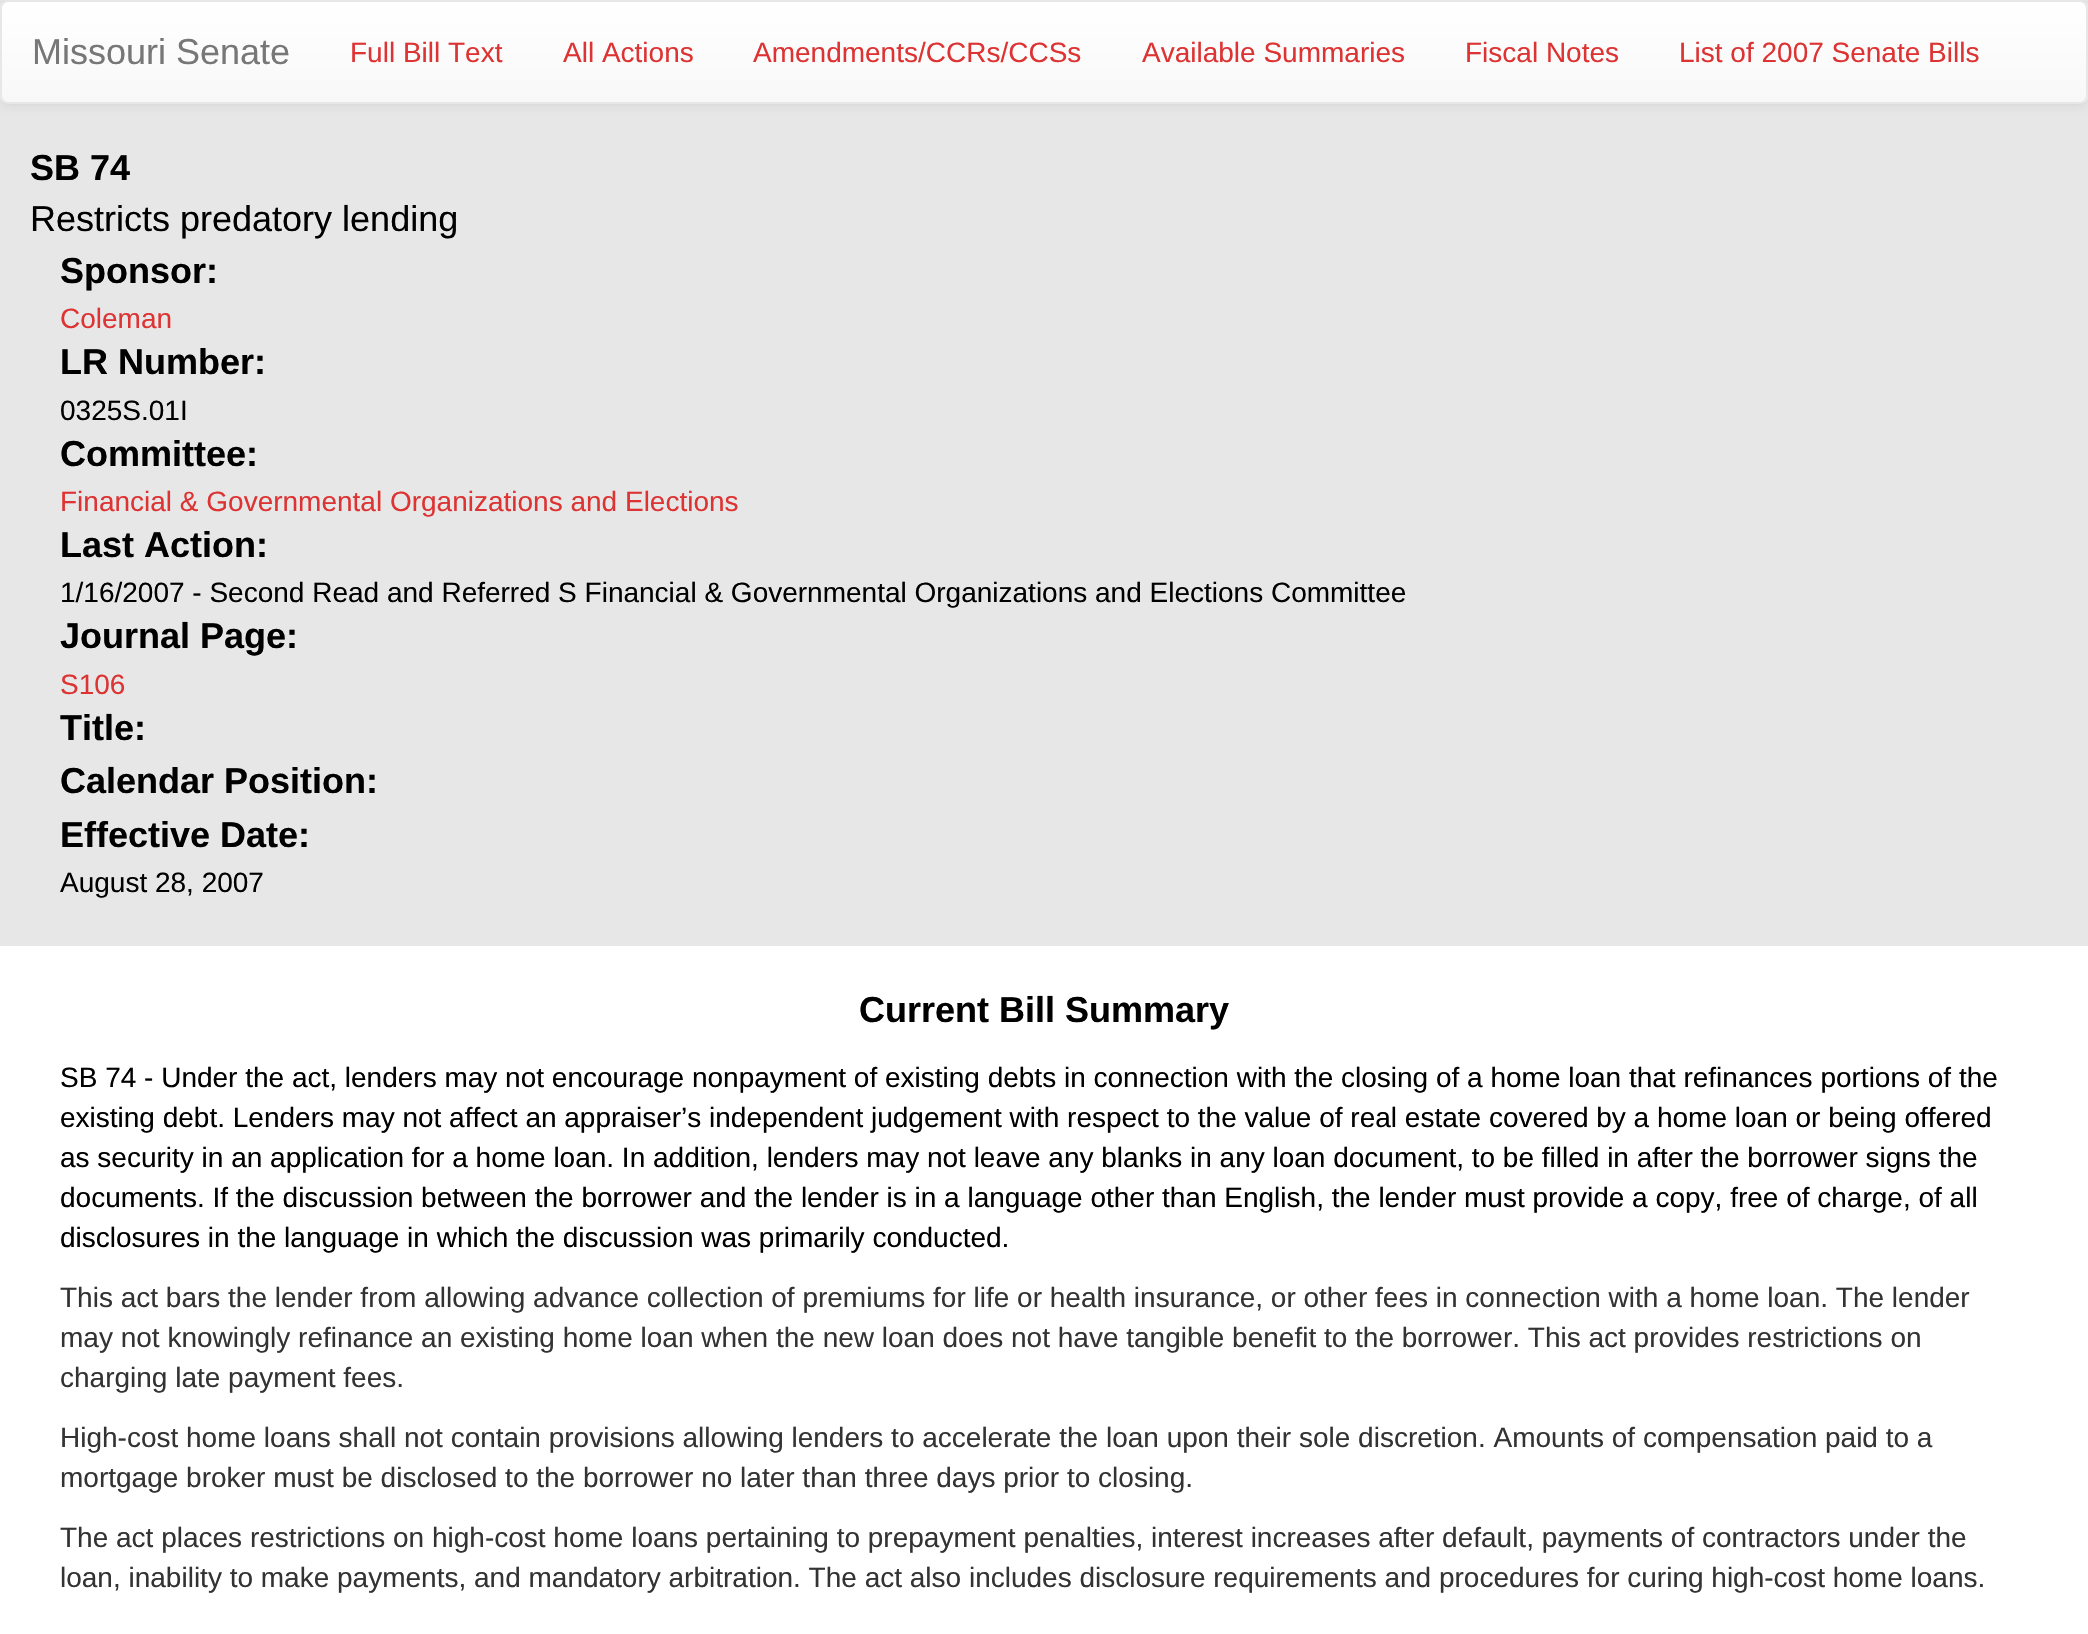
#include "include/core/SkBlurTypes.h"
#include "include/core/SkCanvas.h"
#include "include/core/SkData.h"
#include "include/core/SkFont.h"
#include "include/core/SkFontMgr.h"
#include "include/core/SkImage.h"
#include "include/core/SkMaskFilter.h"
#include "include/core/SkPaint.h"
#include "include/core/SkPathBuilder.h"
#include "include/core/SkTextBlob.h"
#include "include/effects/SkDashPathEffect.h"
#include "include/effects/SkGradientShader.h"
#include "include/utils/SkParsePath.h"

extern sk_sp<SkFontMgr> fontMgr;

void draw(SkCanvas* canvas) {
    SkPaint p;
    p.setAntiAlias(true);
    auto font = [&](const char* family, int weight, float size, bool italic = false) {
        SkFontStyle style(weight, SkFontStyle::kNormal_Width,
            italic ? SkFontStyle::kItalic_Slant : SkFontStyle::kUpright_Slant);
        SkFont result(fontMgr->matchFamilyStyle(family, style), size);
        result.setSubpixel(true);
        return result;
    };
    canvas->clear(0xFFFFFFFF);
    p.setColor(0xFFE7E7E7);
    canvas->drawRect(SkRect::MakeLTRB(0, 0, 2088, 946), p);
    p.setColor(0x12000000);
    p.setMaskFilter(SkMaskFilter::MakeBlur(kNormal_SkBlurStyle, 5));
    canvas->drawRoundRect(SkRect::MakeLTRB(0, 2, 2088, 106), 8, 8, p);
    p.setMaskFilter(nullptr);
    canvas->save();
    canvas->clipPath(SkPathBuilder().moveTo(8, 0).lineTo(2080, 0).cubicTo(2084.5f, 0, 2088, 3.5f, 2088, 8).lineTo(2088, 96).cubicTo(2088, 100.5f, 2084.5f, 104, 2080, 104).lineTo(8, 104).cubicTo(3.5f, 104, 0, 100.5f, 0, 96).lineTo(0, 8).cubicTo(0, 3.5f, 3.5f, 0, 8, 0).close().detach(), true);
    {
        const SkColor colors[] = {0xFFFFFFFF, 0xFFF8F8F8};
        const float stops[] = {0, 1};
        const SkPoint ends[] = {{1044, 2}, {1044, 102}};
        p.setShader(SkGradientShader::MakeLinear(ends, colors, stops, 2, SkTileMode::kClamp));
        p.setAlpha(255);
    }
    canvas->drawRect(SkRect::MakeLTRB(0, 2, 2088, 102), p);
    canvas->restore();
    p.setStyle(SkPaint::kStroke_Style);
    p.setStrokeWidth(2);
    p.setShader(nullptr);
    p.setColor(0xFFE7E7E7);
    canvas->drawRoundRect(SkRect::MakeLTRB(1, 1, 2087, 103), 7, 7, p);
    auto font1 = font("Liberation Sans", 400, 36);
    p.setStyle(SkPaint::kFill_Style);
    p.setColor(0xFF777777);
    canvas->drawString("Missouri Senate", 32, 64, font1, p);
    auto font2 = font("Liberation Sans", 400, 28);
    p.setColor(0xFFDD3333);
    {
        const struct { const char* s; float x, y; } items[] = {
            {"Full Bill Text", 350, 62},
            {"All Actions", 563, 62},
            {"Amendments/CCRs/CCSs", 753, 62},
            {"Available Summaries", 1142, 62},
            {"Fiscal Notes", 1465, 62},
            {"List of 2007 Senate Bills", 1679, 62},
        };
        for (auto [s, x, y] : items) {
            canvas->drawString(s, x, y, font2, p);
        }
    }
    auto font3 = font("Liberation Sans", 700, 36);
    p.setColor(0xFF000000);
    canvas->drawString("SB 74", 30, 180, font3, p);
    canvas->drawString("Restricts predatory lending", 30, 231, font1, p);
    canvas->drawString("Sponsor:", 60, 283, font3, p);
    p.setColor(0xFFDD3333);
    canvas->drawString("Coleman", 60, 328, font2, p);
    p.setColor(0xFF000000);
    canvas->drawString("LR Number:", 60, 374, font3, p);
    canvas->drawString("0325S.01I", 60, 420, font2, p);
    canvas->drawString("Committee:", 60, 466, font3, p);
    p.setColor(0xFFDD3333);
    canvas->drawString("Financial & Governmental Organizations and Elections", 60, 511, font2, p);
    p.setColor(0xFF000000);
    canvas->drawString("Last Action:", 60, 557, font3, p);
    canvas->drawString("1/16/2007 - Second Read and Referred S Financial & Governmental Organizations and Elections Committee", 60, 602, font2, p);
    canvas->drawString("Journal Page:", 60, 648, font3, p);
    p.setColor(0xFFDD3333);
    canvas->drawString("S106", 60, 694, font2, p);
    p.setColor(0xFF000000);
    {
        const struct { const char* s; float x, y; } items[] = {
            {"Title:", 60, 740},
            {"Calendar Position:", 60, 793},
            {"Effective Date:", 60, 847},
        };
        for (auto [s, x, y] : items) {
            canvas->drawString(s, x, y, font3, p);
        }
    }
    canvas->drawString("August 28, 2007", 60, 892, font2, p);
    canvas->drawString("Current Bill Summary", 859, 1022, font3, p);
    {
        const struct { const char* s; float x, y; } items[] = {
            {"SB 74 - Under the act, lenders may not encourage nonpayment of existing debts in connection with the closing of a home loan that refinances portions of the", 60, 1087},
            {"existing debt. Lenders may not affect an appraiser’s independent judgement with respect to the value of real estate covered by a home loan or being offered", 60, 1127},
            {"as security in an application for a home loan. In addition, lenders may not leave any blanks in any loan document, to be filled in after the borrower signs the", 60, 1167},
            {"documents. If the discussion between the borrower and the lender is in a language other than English, the lender must provide a copy, free of charge, of all", 60, 1207},
            {"disclosures in the language in which the discussion was primarily conducted.", 60, 1247},
        };
        for (auto [s, x, y] : items) {
            canvas->drawString(s, x, y, font2, p);
        }
    }
    p.setColor(0xFF333333);
    {
        const struct { const char* s; float x, y; } items[] = {
            {"This act bars the lender from allowing advance collection of premiums for life or health insurance, or other fees in connection with a home loan. The lender", 60, 1307},
            {"may not knowingly refinance an existing home loan when the new loan does not have tangible benefit to the borrower. This act provides restrictions on", 60, 1347},
            {"charging late payment fees.", 60, 1387},
            {"High-cost home loans shall not contain provisions allowing lenders to accelerate the loan upon their sole discretion. Amounts of compensation paid to a", 60, 1447},
            {"mortgage broker must be disclosed to the borrower no later than three days prior to closing.", 60, 1487},
            {"The act places restrictions on high-cost home loans pertaining to prepayment penalties, interest increases after default, payments of contractors under the", 60, 1547},
            {"loan, inability to make payments, and mandatory arbitration. The act also includes disclosure requirements and procedures for curing high-cost home loans.", 60, 1587},
        };
        for (auto [s, x, y] : items) {
            canvas->drawString(s, x, y, font2, p);
        }
    }
}
